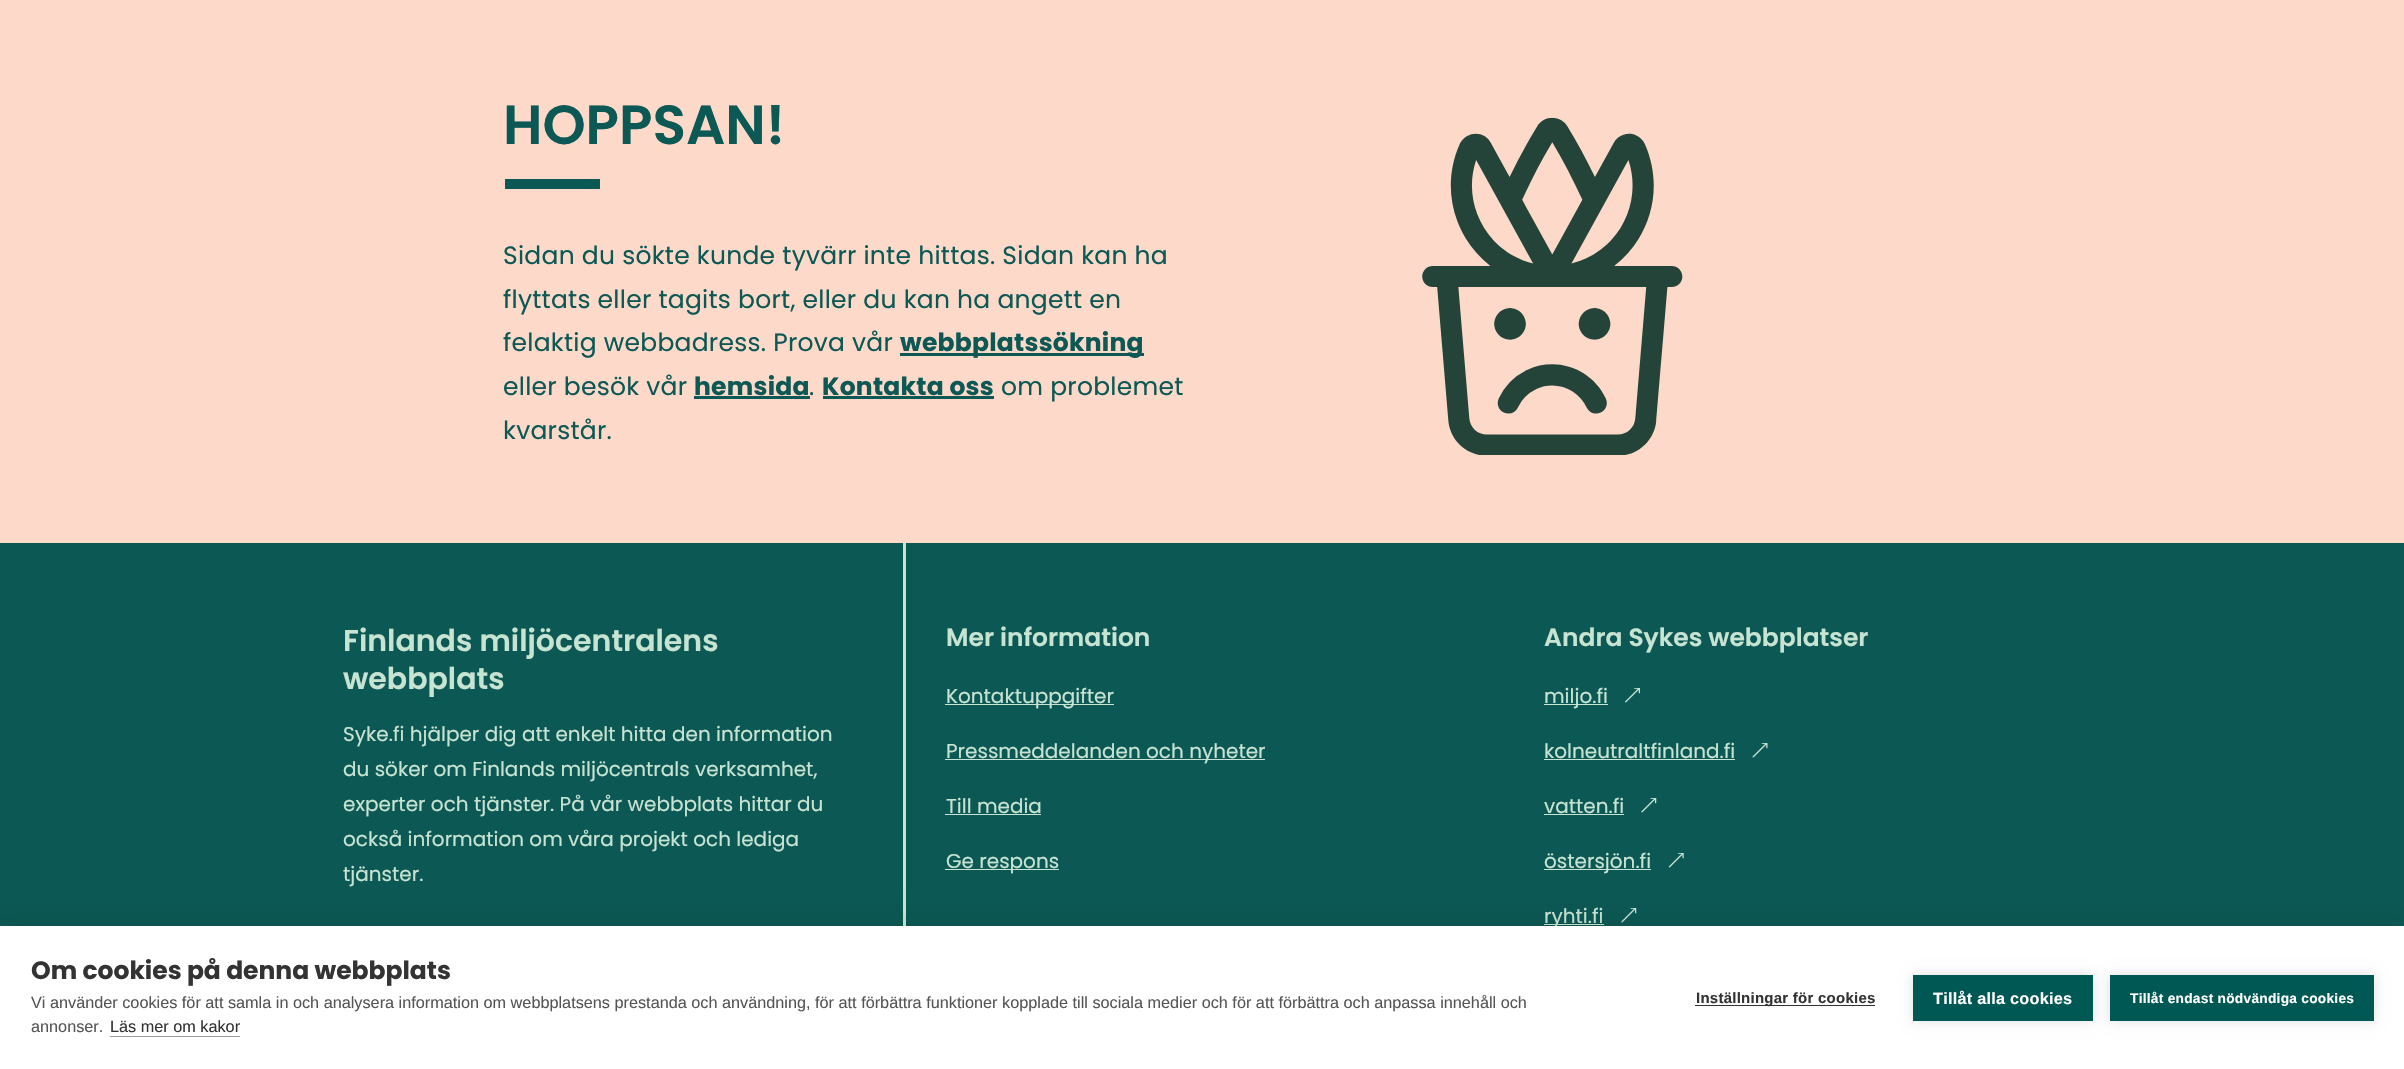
#include "include/core/SkBlurTypes.h"
#include "include/core/SkCanvas.h"
#include "include/core/SkData.h"
#include "include/core/SkFont.h"
#include "include/core/SkFontMgr.h"
#include "include/core/SkImage.h"
#include "include/core/SkMaskFilter.h"
#include "include/core/SkPaint.h"
#include "include/core/SkPathBuilder.h"
#include "include/core/SkTextBlob.h"
#include "include/effects/SkDashPathEffect.h"
#include "include/effects/SkGradientShader.h"
#include "include/utils/SkParsePath.h"

extern sk_sp<SkFontMgr> fontMgr;

void draw(SkCanvas* canvas) {
    SkPaint p;
    p.setAntiAlias(true);
    auto font = [&](const char* family, int weight, float size, bool italic = false) {
        SkFontStyle style(weight, SkFontStyle::kNormal_Width,
            italic ? SkFontStyle::kItalic_Slant : SkFontStyle::kUpright_Slant);
        SkFont result(fontMgr->matchFamilyStyle(family, style), size);
        result.setSubpixel(true);
        return result;
    };
    auto drawTracked = [&](const char* s, float x, float y, const SkFont& font, const SkPaint& ink, float letter, float word) {
        std::vector<SkGlyphID> glyphs(font.countText(s, strlen(s), SkTextEncoding::kUTF8));
        std::vector<float> xs(glyphs.size());
        font.textToGlyphs(s, strlen(s), SkTextEncoding::kUTF8, glyphs);
        font.getXPos(glyphs, xs, x);
        float extra = 0;
        for (size_t i = 0; i < glyphs.size(); i++) {
            xs[i] += extra;
            extra += letter + word * (glyphs[i] == font.unicharToGlyph(' '));
        }
        canvas->drawTextBlob(SkTextBlob::MakeFromPosHGlyphs(glyphs, xs, y, font), 0, 0, ink);
    };
    auto drawPhoto = [&](const char* path, float l, float t, float r, float b) {
        auto image = SkImages::DeferredFromEncodedData(SkData::MakeFromFileName(path));
        canvas->drawImageRect(image, SkRect::MakeLTRB(l, t, r, b), SkSamplingOptions());
    };
    canvas->clear(0xFFFCD9C9);
    auto font1 = font("Poppins", 600, 55);
    p.setColor(0xFF0C5854);
    canvas->drawString("HOPPSAN!", 503, 144, font1, p);
    canvas->drawRect(SkRect::MakeLTRB(505, 179, 600, 189), p);
    auto font2 = font("Poppins", 400, 25);
    {
        const struct { const char* s; float x, y; } items[] = {
            {"Sidan du sökte kunde tyvärr inte hittas. Sidan kan ha", 503, 264},
            {"flyttats eller tagits bort, eller du kan ha angett en", 503, 308},
            {"felaktig webbadress. Prova vår", 503, 351},
        };
        for (auto [s, x, y] : items) {
            drawTracked(s, x, y, font2, p, 0.25f, 0);
        }
    }
    canvas->drawRect(SkRect::MakeLTRB(900, 353, 1144, 356), p);
    auto font3 = font("Poppins", 700, 25);
    drawTracked("webbplatssökning", 900, 351, font3, p, 0.25f, 0);
    drawTracked("eller besök vår", 503, 395, font2, p, 0.25f, 0);
    drawTracked("hemsida", 694, 395, font3, p, 0.25f, 0);
    canvas->drawRect(SkRect::MakeLTRB(694, 396, 810, 399), p);
    drawTracked(".", 809, 395, font2, p, 0.25f, 0);
    drawTracked("Kontakta oss", 822, 395, font3, p, 0.25f, 0);
    canvas->drawRect(SkRect::MakeLTRB(823, 396, 994, 399), p);
    drawTracked("om problemet", 1001, 395, font2, p, 0.25f, 0);
    drawTracked("kvarstår.", 503, 439, font2, p, 0.25f, 0);
    drawPhoto("media/1.png", 1422, 117, 1683, 455);
    canvas->drawRect(SkRect::MakeLTRB(0, 543, 2404, 926), p);
    p.setColor(0xFFC7E3D2);
    canvas->drawRect(SkRect::MakeLTRB(903, 543, 906, 926), p);
    auto font4 = font("Poppins", 600, 30);
    canvas->drawString("Finlands miljöcentralens", 343, 651, font4, p);
    canvas->drawString("webbplats", 343, 689, font4, p);
    auto font5 = font("Poppins", 400, 20);
    {
        const struct { const char* s; float x, y; } items[] = {
            {"Syke.fi hjälper dig att enkelt hitta den information", 343, 741},
            {"du söker om Finlands miljöcentrals verksamhet,", 343, 776},
            {"experter och tjänster. På vår webbplats hittar du", 343, 811},
            {"också information om våra projekt och lediga", 343, 846},
            {"tjänster.", 343, 881},
        };
        for (auto [s, x, y] : items) {
            canvas->drawString(s, x, y, font5, p);
        }
    }
    auto font6 = font("Poppins", 600, 25);
    canvas->drawString("Mer information", 946, 646, font6, p);
    canvas->drawRect(SkRect::MakeLTRB(945, 704, 1114, 705), p);
    canvas->drawString("Kontaktuppgifter", 946, 703, font5, p);
    canvas->drawRect(SkRect::MakeLTRB(945, 759, 1265, 760), p);
    canvas->drawString("Pressmeddelanden och nyheter", 946, 758, font5, p);
    canvas->drawString("Till media", 946, 813, font5, p);
    canvas->drawRect(SkRect::MakeLTRB(945, 814, 1041, 815), p);
    canvas->drawRect(SkRect::MakeLTRB(945, 869, 1059, 870), p);
    canvas->drawString("Ge respons", 946, 868, font5, p);
    canvas->drawString("Andra Sykes webbplatser", 1544, 646, font6, p);
    canvas->drawRect(SkRect::MakeLTRB(1544, 704, 1608, 705), p);
    canvas->drawString("miljo.fi", 1544, 703, font5, p);
    drawPhoto("media/2.png", 1625, 688, 1640, 703);
    canvas->drawString("kolneutraltfinland.fi", 1544, 758, font5, p);
    canvas->drawRect(SkRect::MakeLTRB(1544, 759, 1735, 760), p);
    drawPhoto("media/3.png", 1752, 743, 1768, 758);
    canvas->drawString("vatten.fi", 1544, 813, font5, p);
    canvas->drawRect(SkRect::MakeLTRB(1544, 814, 1624, 815), p);
    drawPhoto("media/4.png", 1641, 798, 1657, 813);
    canvas->drawRect(SkRect::MakeLTRB(1544, 869, 1651, 870), p);
    canvas->drawString("östersjön.fi", 1544, 868, font5, p);
    drawPhoto("media/5.png", 1668, 853, 1684, 868);
    canvas->drawRect(SkRect::MakeLTRB(1544, 924, 1604, 925), p);
    canvas->drawString("ryhti.fi", 1544, 923, font5, p);
    drawPhoto("media/4.png", 1621, 908, 1637, 923);
    p.setColor(0x1A000000);
    p.setMaskFilter(SkMaskFilter::MakeBlur(kNormal_SkBlurStyle, 12.5f));
    canvas->drawRect(SkRect::MakeLTRB(0, 926, 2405, 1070), p);
    p.setMaskFilter(nullptr);
    p.setColor(0xFFFFFFFF);
    canvas->drawRect(SkRect::MakeLTRB(0, 926, 2404, 1069), p);
    p.setColor(0xFF333333);
    canvas->drawString("Om cookies på denna webbplats", 31, 979, font3, p);
    auto font7 = font("Liberation Sans", 400, 16.25f);
    p.setColor(0xFF555555);
    canvas->drawString("Vi använder cookies för att samla in och analysera information om webbplatsens prestanda och användning, för att förbättra funktioner kopplade till sociala medier och för att förbättra och anpassa innehåll och", 31, 1008, font7, p);
    canvas->drawString("annonser.", 31, 1032, font7, p);
    p.setColor(0xFF333333);
    canvas->drawString("Läs mer om kakor", 110, 1032, font7, p);
    p.setColor(0xFF999999);
    canvas->drawRect(SkRect::MakeLTRB(110, 1036, 240, 1037), p);
    p.setColor(0xFF333333);
    canvas->drawRect(SkRect::MakeLTRB(1695, 1005, 1875, 1006), p);
    auto font8 = font("Liberation Sans", 700, 15);
    drawTracked("Inställningar för cookies", 1696, 1003, font8, p, 0.25f, 0);
    p.setColor(0x1F000000);
    p.setMaskFilter(SkMaskFilter::MakeBlur(kNormal_SkBlurStyle, 6));
    canvas->drawRect(SkRect::MakeLTRB(1913, 975, 2093, 1021), p);
    p.setMaskFilter(nullptr);
    p.setColor(0xFF005854);
    canvas->drawRect(SkRect::MakeLTRB(1913, 975, 2093, 1021), p);
    auto font9 = font("Liberation Sans", 700, 16.25f);
    p.setColor(0xFFFFFFFF);
    drawTracked("Tillåt alla cookies", 1933, 1004, font9, p, 0.25f, 0);
    p.setColor(0x1F000000);
    p.setMaskFilter(SkMaskFilter::MakeBlur(kNormal_SkBlurStyle, 6));
    canvas->drawRect(SkRect::MakeLTRB(2110, 975, 2374, 1021), p);
    p.setMaskFilter(nullptr);
    p.setColor(0xFF005854);
    canvas->drawRect(SkRect::MakeLTRB(2110, 975, 2374, 1021), p);
    auto font10 = font("Liberation Sans", 700, 13.75f);
    p.setColor(0xFFFFFFFF);
    drawTracked("Tillåt endast nödvändiga cookies", 2130, 1003, font10, p, 0.25f, 0);
}
